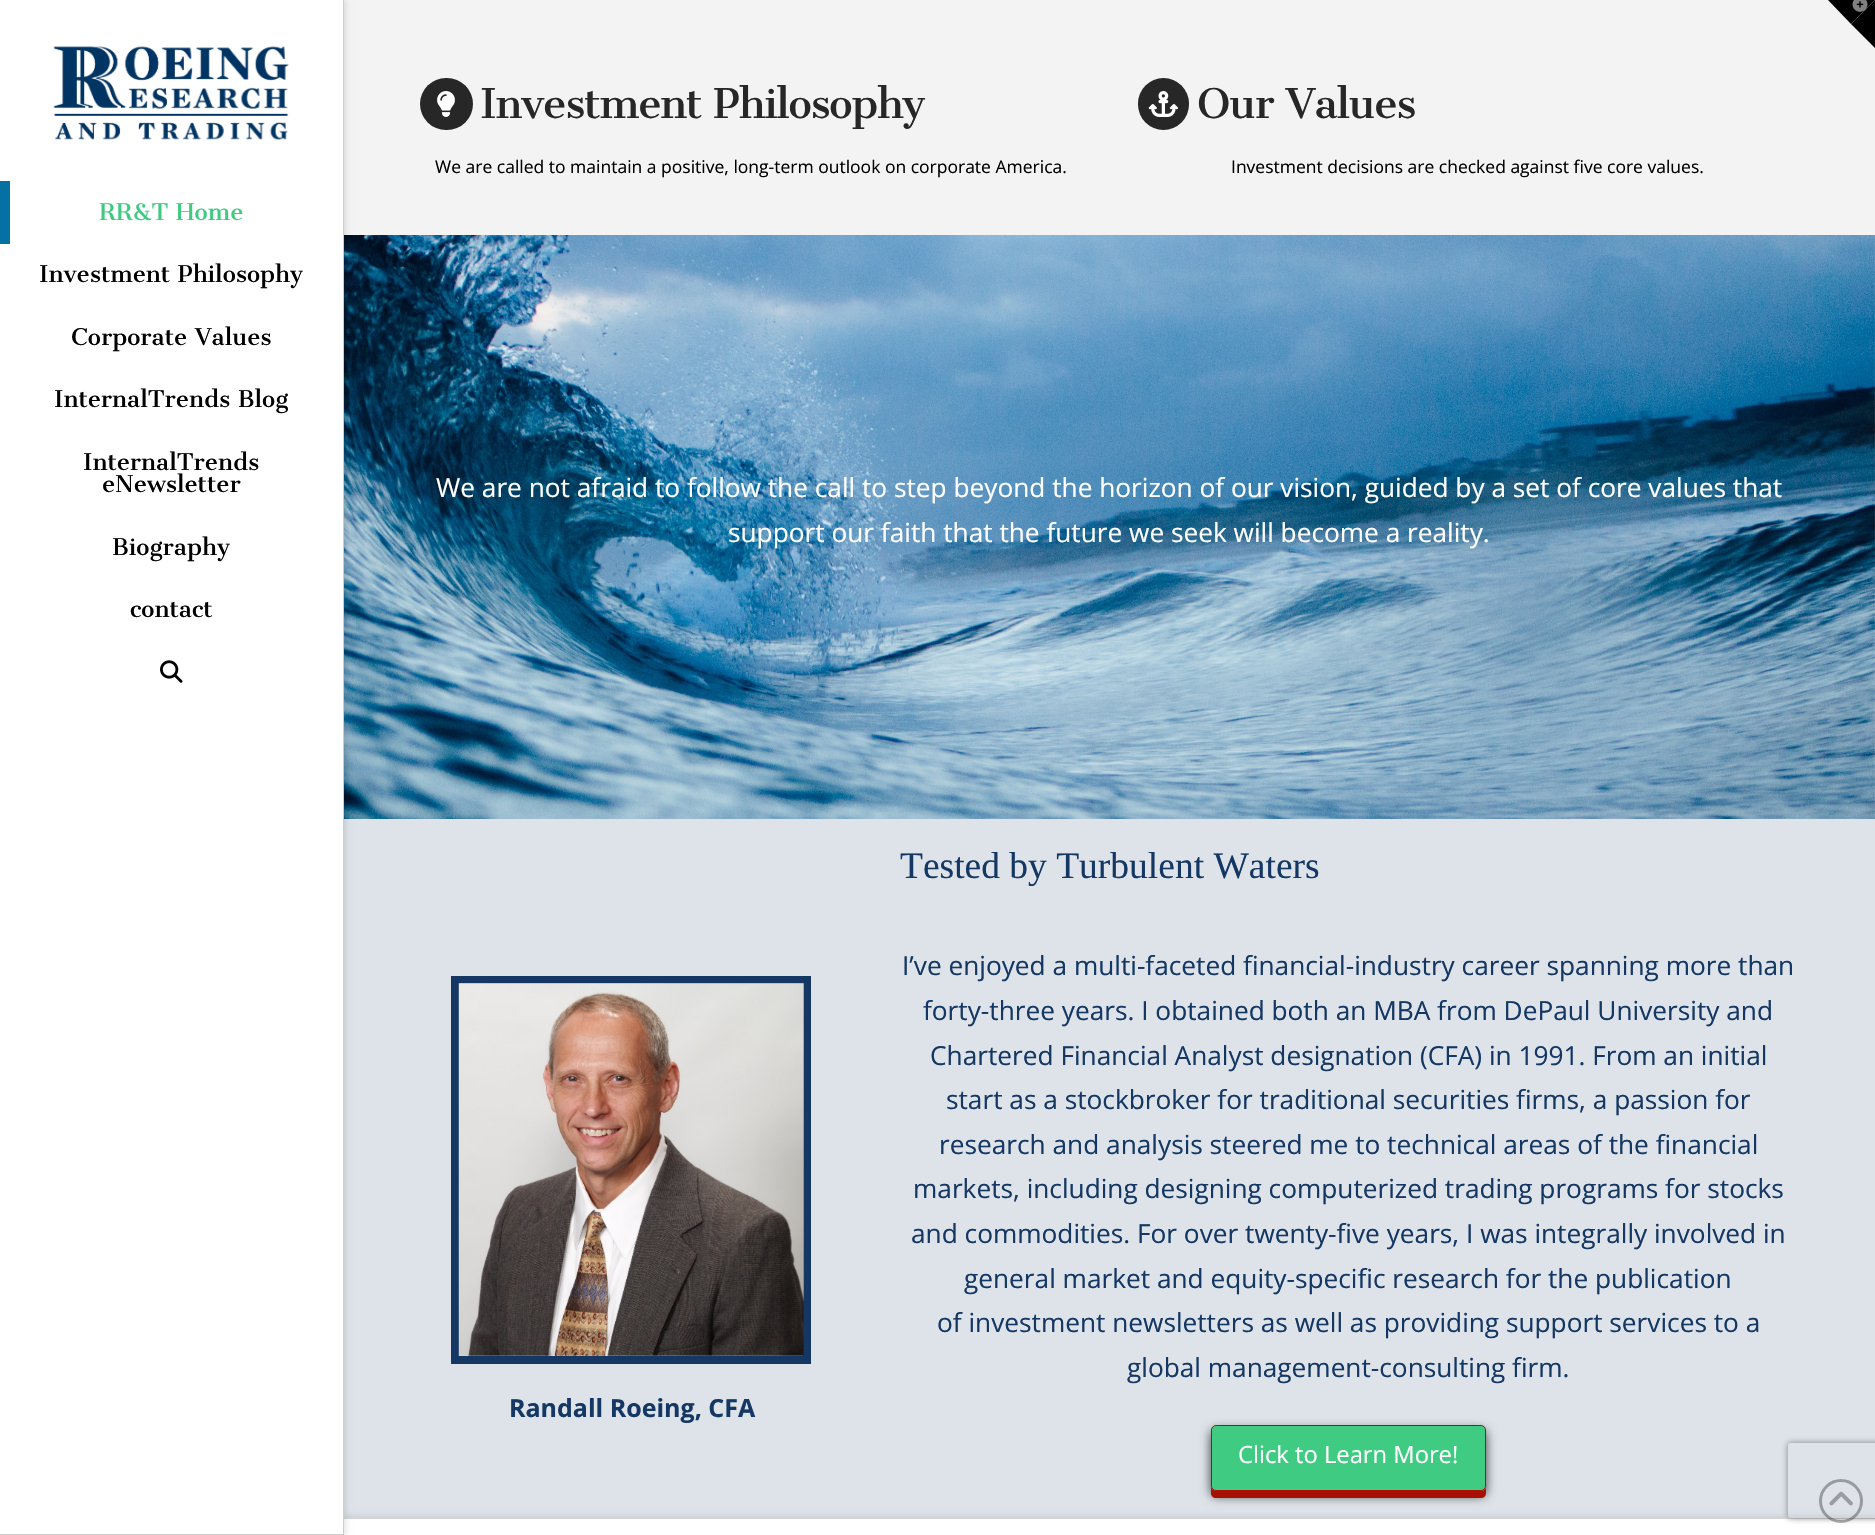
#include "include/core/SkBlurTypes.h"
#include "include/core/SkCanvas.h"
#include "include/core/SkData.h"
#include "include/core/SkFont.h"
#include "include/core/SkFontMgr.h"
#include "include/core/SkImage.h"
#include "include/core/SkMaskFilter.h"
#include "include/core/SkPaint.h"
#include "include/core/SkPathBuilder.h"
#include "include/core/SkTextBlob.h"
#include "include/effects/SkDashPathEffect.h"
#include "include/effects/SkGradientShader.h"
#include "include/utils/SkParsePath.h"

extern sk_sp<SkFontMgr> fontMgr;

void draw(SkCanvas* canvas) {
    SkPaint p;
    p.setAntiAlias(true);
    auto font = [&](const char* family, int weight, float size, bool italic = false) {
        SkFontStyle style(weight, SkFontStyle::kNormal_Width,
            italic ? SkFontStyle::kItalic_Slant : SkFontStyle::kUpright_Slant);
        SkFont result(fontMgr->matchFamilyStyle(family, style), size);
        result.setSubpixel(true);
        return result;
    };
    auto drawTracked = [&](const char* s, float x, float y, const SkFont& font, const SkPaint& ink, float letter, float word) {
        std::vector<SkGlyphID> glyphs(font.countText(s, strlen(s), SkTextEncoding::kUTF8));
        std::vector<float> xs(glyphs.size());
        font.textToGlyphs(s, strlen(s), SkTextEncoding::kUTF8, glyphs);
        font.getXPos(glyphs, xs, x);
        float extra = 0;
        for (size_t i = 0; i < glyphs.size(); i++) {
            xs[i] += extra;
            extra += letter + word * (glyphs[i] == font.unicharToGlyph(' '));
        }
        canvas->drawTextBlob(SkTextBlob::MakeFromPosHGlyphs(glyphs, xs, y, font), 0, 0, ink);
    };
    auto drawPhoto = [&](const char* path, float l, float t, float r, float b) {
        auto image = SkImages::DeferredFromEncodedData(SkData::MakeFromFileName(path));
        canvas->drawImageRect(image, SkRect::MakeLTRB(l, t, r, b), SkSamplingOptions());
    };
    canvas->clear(0xFFF3F3F3);
    p.setColor(0xFF000000);
    canvas->drawPath(SkPathBuilder().moveTo(1828, 0).lineTo(1875, 0).lineTo(1851, 24).close().detach(), p);
    canvas->drawPath(SkPathBuilder().moveTo(1875, 0).lineTo(1875, 48).lineTo(1851, 24).close().detach(), p);
    drawPhoto("media/1.png", 1852, 0, 1868, 12);
    drawPhoto("media/6.png", 344, 235, 1875, 819);
    p.setColor(0xFFDDE3E9);
    canvas->drawRect(SkRect::MakeLTRB(344, 819, 1875, 1518), p);
    p.setColor(0x12000000);
    p.setMaskFilter(SkMaskFilter::MakeBlur(kNormal_SkBlurStyle, 2));
    canvas->drawRect(SkRect::MakeLTRB(344, 1515, 1875, 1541), p);
    p.setMaskFilter(nullptr);
    p.setColor(0xFFFFFFFF);
    canvas->drawRect(SkRect::MakeLTRB(344, 1519, 1875, 1535), p);
    p.setColor(0xFFD4D4D4);
    canvas->drawRect(SkRect::MakeLTRB(344, 1518, 1875, 1519), p);
    p.setColor(0x1A000000);
    p.setMaskFilter(SkMaskFilter::MakeBlur(kNormal_SkBlurStyle, 2.5f));
    canvas->drawRect(SkRect::MakeLTRB(3, 0, 346, 1535), p);
    p.setMaskFilter(nullptr);
    {
        const struct { float l, t, r, b; SkColor color; } items[] = {
            {0, 0, 343, 1534, 0xFFFFFFFF},
            {343, 0, 344, 1535, 0xFFCCCCCC},
            {0, 1534, 344, 1535, 0xFFCCCCCC},
        };
        for (auto [l, t, r, b, color] : items) {
            p.setColor(color);
            canvas->drawRect(SkRect::MakeLTRB(l, t, r, b), p);
        }
    }
    drawPhoto("media/2.png", 53, 46, 289, 140);
    p.setColor(0xFF0571A3);
    canvas->drawRect(SkRect::MakeLTRB(0, 181, 10, 244), p);
    auto font1 = font("Cantata One", 400, 22.5f);
    p.setColor(0xFF3FCA82);
    canvas->drawString("RR&T Home", 99, 220, font1, p);
    p.setColor(0xFF000000);
    {
        const struct { const char* s; float x, y; } items[] = {
            {"Investment Philosophy", 39, 282},
            {"Corporate Values", 71, 345},
            {"InternalTrends Blog", 54, 407},
            {"InternalTrends", 83, 470},
            {"eNewsletter", 102, 492},
            {"Biography", 112, 555},
            {"contact", 130, 617},
        };
        for (auto [s, x, y] : items) {
            canvas->drawString(s, x, y, font1, p);
        }
    }
    drawPhoto("media/3.png", 160, 660, 183, 683);
    p.setColor(0xFF272727);
    canvas->drawRoundRect(SkRect::MakeLTRB(420, 78, 473, 130), 26, 26, p);
    drawPhoto("media/4.png", 437, 91, 455, 117);
    auto font2 = font("Cantata One", 400, 40);
    drawTracked("Investment Philosophy", 480, 118, font2, p, -1.2f, 0);
    auto font3 = font("Open Sans", 400, 17.5f);
    p.setColor(0xFF000000);
    canvas->drawString("We are called to maintain a positive, long-term outlook on corporate America.", 435, 173, font3, p);
    p.setColor(0xFF272727);
    canvas->drawRoundRect(SkRect::MakeLTRB(1138, 78, 1189, 130), 25.5f, 25.5f, p);
    drawPhoto("media/5.png", 1148, 91, 1178, 117);
    drawTracked("Our Values", 1197, 118, font2, p, -1.2f, 0);
    p.setColor(0xFF000000);
    canvas->drawString("Investment decisions are checked against five core values.", 1231, 173, font3, p);
    auto font4 = font("Open Sans", 400, 26.25f);
    p.setColor(0xFFFFFFFF);
    canvas->drawString("We are not afraid to follow the call to step beyond the horizon of our vision, guided by a set of core values that", 436, 497, font4, p);
    canvas->drawString("support our faith that the future we seek will become a reality.", 728, 542, font4, p);
    auto font5 = font("Liberation Serif", 400, 37.5f);
    p.setColor(0xFF143763);
    canvas->drawString("Tested by Turbulent Waters", 900, 878, font5, p);
    p.setStyle(SkPaint::kStroke_Style);
    p.setStrokeWidth(8);
    canvas->drawRect(SkRect::MakeLTRB(455, 980, 807, 1360), p);
    drawPhoto("media/7.png", 458, 983, 804, 1356);
    auto font6 = font("Open Sans", 700, 25);
    p.setStyle(SkPaint::kFill_Style);
    canvas->drawString("Randall Roeing, CFA", 509, 1417, font6, p);
    {
        const struct { const char* s; float x, y; } items[] = {
            {"I’ve enjoyed a multi-faceted financial-industry career spanning more than", 902, 975},
            {"forty-three years. I obtained both an MBA from DePaul University and", 923, 1020},
            {"Chartered Financial Analyst designation (CFA) in 1991. From an initial", 930, 1065},
            {"start as a stockbroker for traditional securities firms, a passion for", 946, 1109},
            {"research and analysis steered me to technical areas of the financial", 939, 1154},
            {"markets, including designing computerized trading programs for stocks", 913, 1198},
            {"and commodities. For over twenty-five years, I was integrally involved in", 911, 1243},
            {"general market and equity-specific research for the publication", 964, 1288},
            {"of investment newsletters as well as providing support services to a", 937, 1332},
            {"global management-consulting firm.", 1127, 1377},
        };
        for (auto [s, x, y] : items) {
            canvas->drawString(s, x, y, font4, p);
        }
    }
    p.setColor(0xBF000000);
    p.setMaskFilter(SkMaskFilter::MakeBlur(kNormal_SkBlurStyle, 5.5f));
    canvas->drawRoundRect(SkRect::MakeLTRB(1211, 1430, 1486, 1496), 5, 5, p);
    p.setMaskFilter(nullptr);
    p.setColor(0xFFA71000);
    canvas->drawPath(SkPathBuilder().moveTo(1211, 1434).lineTo(1211, 1493).cubicTo(1211, 1496, 1213, 1498, 1216, 1498).lineTo(1481, 1498).cubicTo(1484, 1498, 1486, 1496, 1486, 1493).lineTo(1486, 1488).cubicTo(1485, 1490, 1483, 1491, 1481, 1491).lineTo(1217, 1491).cubicTo(1214, 1491, 1211, 1489, 1211, 1486).close().detach(), p);
    p.setColor(0xFF3FCB82);
    canvas->drawRoundRect(SkRect::MakeLTRB(1211.5f, 1425.5f, 1485.5f, 1490.5f), 4.5f, 4.5f, p);
    p.setStyle(SkPaint::kStroke_Style);
    p.setStrokeWidth(1);
    p.setColor(0xFFAC1100);
    canvas->drawRoundRect(SkRect::MakeLTRB(1211.5f, 1425.5f, 1485.5f, 1490.5f), 4.5f, 4.5f, p);
    auto font7 = font("Open Sans", 400, 23.75f);
    p.setStyle(SkPaint::kFill_Style);
    p.setColor(0xFFFFFFFF);
    canvas->drawString("Click to Learn More!", 1238, 1463, font7, p);
    canvas->save();
    canvas->clipPath(SkPathBuilder(SkPathFillType::kEvenOdd).moveTo(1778, 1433).lineTo(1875, 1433).lineTo(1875, 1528).lineTo(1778, 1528).close().moveTo(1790.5f, 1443).lineTo(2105.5f, 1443).cubicTo(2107, 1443, 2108, 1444, 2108, 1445.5f).lineTo(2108, 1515.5f).cubicTo(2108, 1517, 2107, 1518, 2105.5f, 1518).lineTo(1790.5f, 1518).cubicTo(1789, 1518, 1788, 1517, 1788, 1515.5f).lineTo(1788, 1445.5f).cubicTo(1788, 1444, 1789, 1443, 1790.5f, 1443).close().detach(), true);
    p.setColor(0xFF808080);
    p.setMaskFilter(SkMaskFilter::MakeBlur(kNormal_SkBlurStyle, 3));
    canvas->drawRoundRect(SkRect::MakeLTRB(1788, 1443, 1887, 1518), 2.5f, 2.5f, p);
    p.setMaskFilter(nullptr);
    canvas->restore();
    p.setStyle(SkPaint::kStroke_Style);
    p.setStrokeWidth(3);
    p.setColor(0x61272727);
    canvas->drawCircle(1841, 1501, 20.5f, p);
    drawPhoto("media/8.png", 1829, 1491, 1853, 1506);
}
